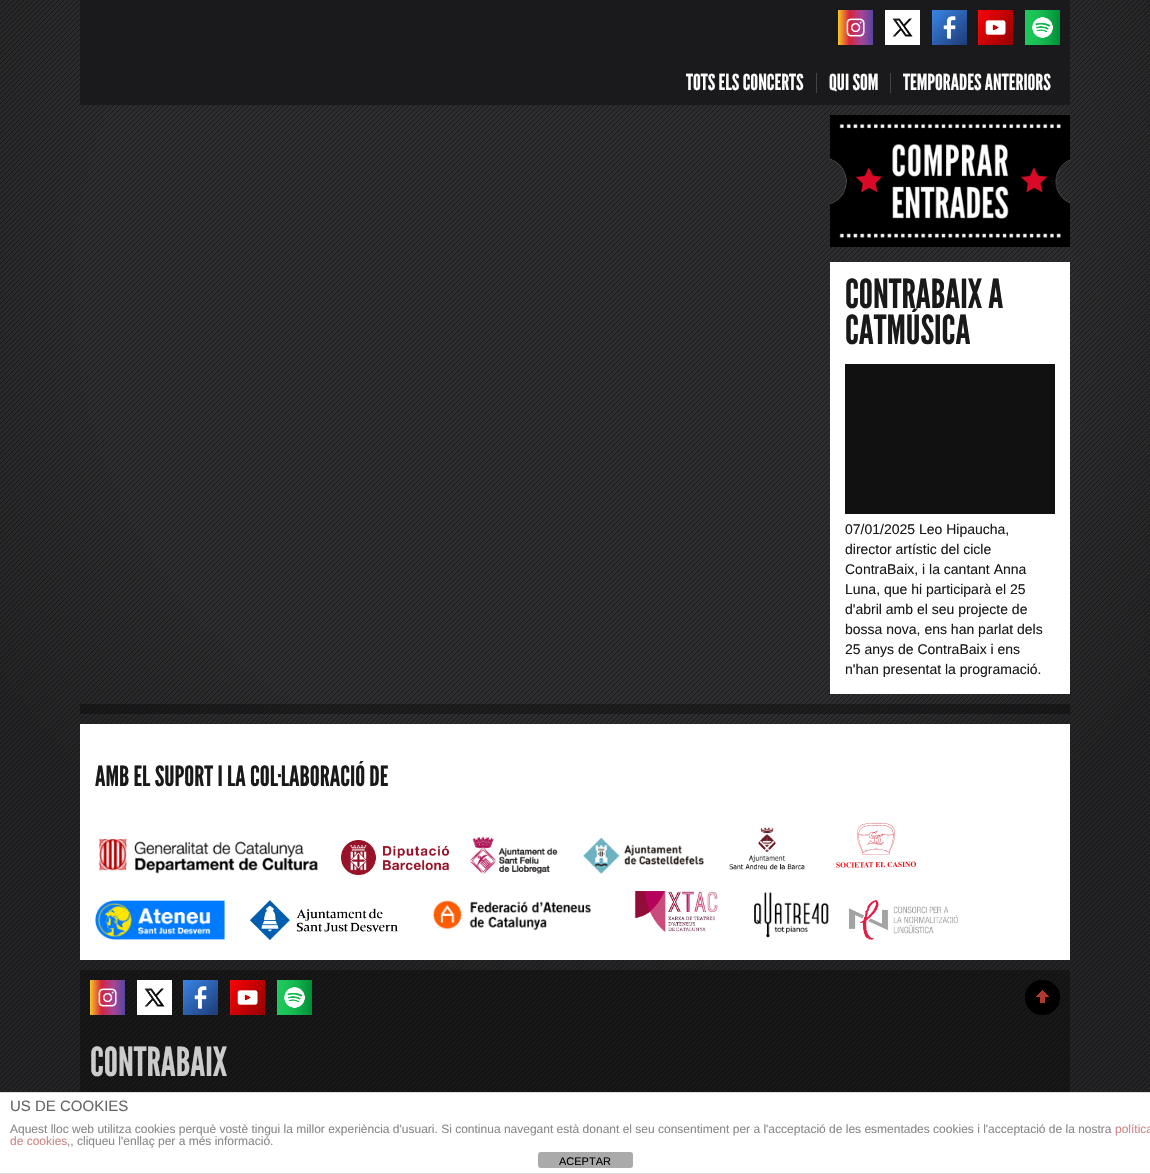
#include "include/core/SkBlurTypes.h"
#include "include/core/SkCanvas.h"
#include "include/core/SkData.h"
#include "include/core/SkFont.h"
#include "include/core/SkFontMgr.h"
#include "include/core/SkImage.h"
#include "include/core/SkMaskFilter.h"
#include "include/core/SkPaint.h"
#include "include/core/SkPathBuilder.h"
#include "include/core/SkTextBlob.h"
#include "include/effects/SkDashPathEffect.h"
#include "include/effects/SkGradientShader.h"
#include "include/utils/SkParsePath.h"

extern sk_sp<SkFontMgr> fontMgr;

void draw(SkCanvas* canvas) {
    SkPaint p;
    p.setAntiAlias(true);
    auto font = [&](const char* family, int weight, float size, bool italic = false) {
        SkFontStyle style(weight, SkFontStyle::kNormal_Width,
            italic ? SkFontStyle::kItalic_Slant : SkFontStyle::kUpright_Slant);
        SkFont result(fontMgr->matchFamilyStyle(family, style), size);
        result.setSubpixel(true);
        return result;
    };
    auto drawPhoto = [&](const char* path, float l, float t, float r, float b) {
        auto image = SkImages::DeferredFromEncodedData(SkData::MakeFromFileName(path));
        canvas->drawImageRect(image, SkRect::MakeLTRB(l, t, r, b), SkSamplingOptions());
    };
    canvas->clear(0xFF2D2D2F);
    drawPhoto("media/1.png", 0, 0, 1150, 1092);
    drawPhoto("media/2.png", 0, 0, 1150, 1092);
    p.setColor(0xFF1A1A1C);
    canvas->drawRect(SkRect::MakeLTRB(80, 0, 1070, 105), p);
    drawPhoto("media/3.png", 838, 10, 873, 45);
    drawPhoto("media/4.png", 885, 10, 920, 45);
    drawPhoto("media/5.png", 932, 10, 967, 45);
    drawPhoto("media/6.png", 978, 10, 1013, 45);
    drawPhoto("media/7.png", 1025, 10, 1060, 45);
    auto font1 = font("League Gothic", 400, 22);
    p.setColor(0xFFFFFFFF);
    canvas->drawString("TOTS ELS CONCERTS", 686, 90, font1, p);
    p.setColor(0xFF424446);
    canvas->drawRect(SkRect::MakeLTRB(816, 73, 817, 93), p);
    p.setColor(0xFFFFFFFF);
    canvas->drawString("QUI SOM", 829, 90, font1, p);
    p.setColor(0xFF424446);
    canvas->drawRect(SkRect::MakeLTRB(890, 73, 891, 93), p);
    p.setColor(0xFFFFFFFF);
    canvas->drawString("TEMPORADES ANTERIORS", 903, 90, font1, p);
    drawPhoto("media/8.png", 830, 115, 1070, 247);
    canvas->drawRect(SkRect::MakeLTRB(830, 262, 1070, 694), p);
    auto font2 = font("League Gothic", 400, 40);
    p.setColor(0xFF191919);
    canvas->drawString("CONTRABAIX A", 845, 308, font2, p);
    canvas->drawString("CATMÚSICA", 845, 344, font2, p);
    p.setColor(0xFF111111);
    canvas->drawRect(SkRect::MakeLTRB(845, 364, 1055, 514), p);
    auto font3 = font("Liberation Sans", 400, 14);
    p.setColor(0xFF191919);
    {
        const struct { const char* s; float x, y; } items[] = {
            {"07/01/2025 Leo Hipaucha,", 845, 534},
            {"director artístic del cicle", 845, 554},
            {"ContraBaix, i la cantant Anna", 845, 574},
            {"Luna, que hi participarà el 25", 845, 594},
            {"d'abril amb el seu projecte de", 845, 614},
            {"bossa nova, ens han parlat dels", 845, 634},
            {"25 anys de ContraBaix i ens", 845, 654},
            {"n'han presentat la programació.", 845, 674},
        };
        for (auto [s, x, y] : items) {
            canvas->drawString(s, x, y, font3, p);
        }
    }
    p.setColor(0x59000000);
    canvas->drawRect(SkRect::MakeLTRB(80, 704, 1070, 714), p);
    p.setColor(0xFFFFFFFF);
    canvas->drawRect(SkRect::MakeLTRB(80, 724, 1070, 960), p);
    auto font4 = font("League Gothic", 400, 28);
    p.setColor(0xFF191919);
    canvas->drawString("AMB EL SUPORT I LA COL·LABORACIÓ DE", 95, 786, font4, p);
    drawPhoto("media/9.png", 99, 838, 318, 874);
    drawPhoto("media/10.png", 341, 840, 449, 875);
    drawPhoto("media/11.png", 470, 836, 558, 874);
    drawPhoto("media/12.png", 583, 837, 704, 874);
    drawPhoto("media/13.png", 729, 827, 805, 870);
    drawPhoto("media/14.png", 836, 822, 917, 868);
    drawPhoto("media/15.png", 95, 900, 225, 940);
    drawPhoto("media/16.png", 250, 900, 398, 940);
    drawPhoto("media/17.png", 433, 900, 592, 931);
    drawPhoto("media/18.png", 634, 891, 718, 932);
    drawPhoto("media/19.png", 754, 892, 829, 938);
    drawPhoto("media/20.png", 849, 900, 958, 940);
    p.setColor(0x59000000);
    canvas->drawRect(SkRect::MakeLTRB(80, 970, 1070, 1092), p);
    drawPhoto("media/3.png", 90, 980, 125, 1015);
    drawPhoto("media/21.png", 137, 980, 172, 1015);
    drawPhoto("media/5.png", 183, 980, 218, 1015);
    drawPhoto("media/6.png", 230, 980, 265, 1015);
    drawPhoto("media/7.png", 277, 980, 312, 1015);
    drawPhoto("media/22.png", 1025, 980, 1060, 1015);
    p.setColor(0xFFCCCCCC);
    canvas->drawString("CONTRABAIX", 90, 1076, font2, p);
    {
        const struct { float l, t, r, b; SkColor color; } items[] = {
            {0, 1093, 1150, 1173, 0xFFFFFFFF},
            {0, 1092, 1150, 1093, 0xFFDDDDDD},
            {0, 1173, 1150, 1174, 0xFFDDDDDD},
        };
        for (auto [l, t, r, b, color] : items) {
            p.setColor(color);
            canvas->drawRect(SkRect::MakeLTRB(l, t, r, b), p);
        }
    }
    auto font5 = font("Liberation Sans", 400, 15);
    p.setColor(0xFF666666);
    canvas->drawString("US DE COOKIES", 10, 1111, font5, p);
    auto font6 = font("Liberation Sans", 400, 12);
    p.setColor(0xFF888888);
    canvas->drawString("Aquest lloc web utilitza cookies perquè vostè tingui la millor experiència d'usuari. Si continua navegant està donant el seu consentiment per a l'acceptació de les esmentades cookies i l'acceptació de la nostra", 10, 1133, font6, p);
    p.setColor(0xFFCC8888);
    canvas->drawString("política", 1115, 1133, font6, p);
    canvas->drawString("de cookies", 10, 1145, font6, p);
    p.setColor(0xFF888888);
    canvas->drawString(",, cliqueu l'enllaç per a més informació.", 67, 1145, font6, p);
    p.setColor(0xFFAAAAAA);
    canvas->drawRoundRect(SkRect::MakeLTRB(538, 1152, 633, 1168), 3, 3, p);
    auto font7 = font("Liberation Sans", 400, 11);
    p.setColor(0xFF000000);
    canvas->drawString("ACEPTAR", 559, 1165, font7, p);
}
